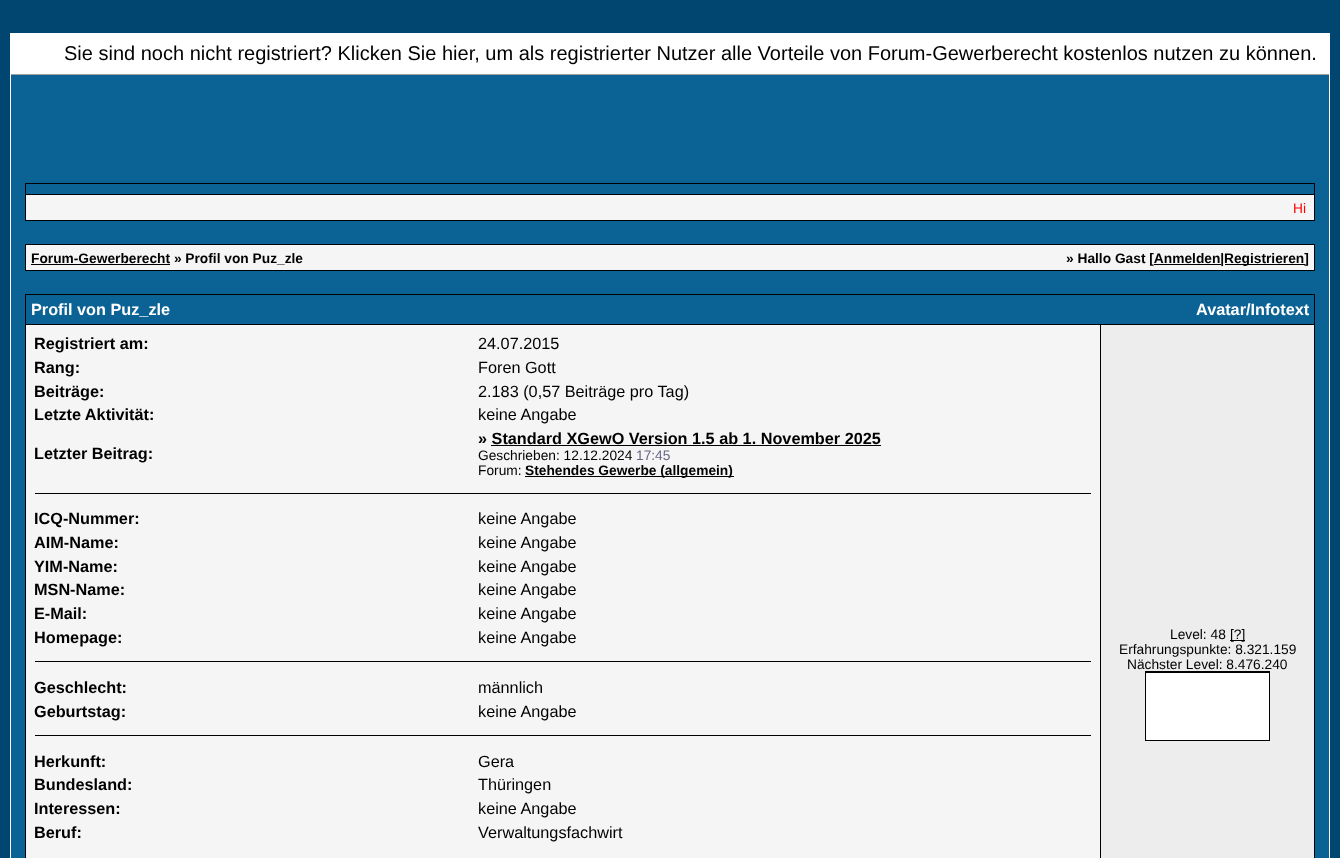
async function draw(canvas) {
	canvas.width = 1340;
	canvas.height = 858;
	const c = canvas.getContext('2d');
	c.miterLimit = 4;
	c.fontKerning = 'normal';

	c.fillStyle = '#004671';
	c.fillRect(0, 0, 1340, 858);
	for (const [x, y, w, h, color] of [
		[10, 33, 1320, 825, '#fff'],
		[11, 75, 1318, 783, '#0b6295'],
		[11, 74, 1318, 1, '#9f9f9f'],
	]) {
		c.fillStyle = color;
		c.fillRect(x, y, w, h);
	}
	c.font = '20px Liberation Sans';
	c.fillStyle = '#000';
	c.fillText('Sie sind noch nicht registriert? Klicken Sie hier, um als registrierter Nutzer alle Vorteile von Forum-Gewerberecht kostenlos nutzen zu können.', 64, 60);
	for (const [x, y, w, h, color] of [
		[25, 183, 1290, 38, '#000'],
		[26, 184, 1288, 10, '#0b6295'],
		[26, 195, 1288, 25, '#f5f5f5'],
	]) {
		c.fillStyle = color;
		c.fillRect(x, y, w, h);
	}
	c.font = '13.75px Liberation Sans';
	c.fillStyle = '#f00';
	c.fillText('Hi', 1293, 213);
	for (const [x, y, w, h, color] of [
		[25, 244, 1290, 27, '#000'],
		[26, 245, 1288, 25, '#f5f5f5'],
		[31, 264, 139, 1, '#000'],
	]) {
		c.fillStyle = color;
		c.fillRect(x, y, w, h);
	}
	c.font = 'bold 13.75px Liberation Sans';
	c.fillText('Forum-Gewerberecht » Profil von Puz_zle', 31, 263);
	c.fillText('» Hallo Gast [Anmelden|', 1066, 263);
	c.fillRect(1154, 264, 67, 1);
	c.fillRect(1225, 264, 80, 1);
	c.fillText('Registrieren]', 1224, 263);
	c.fillRect(25, 294, 1290, 564);
	c.fillStyle = '#0b6295';
	c.fillRect(26, 295, 1288, 29);
	c.font = 'bold 16.25px Liberation Sans';
	c.fillStyle = '#fff';
	c.fillText('Profil von Puz_zle', 31, 315);
	c.fillText('Avatar/Infotext', 1196, 315);
	c.fillStyle = '#f5f5f5';
	c.fillRect(26, 325, 1074, 533);
	c.fillStyle = '#000';
	c.fillText('Registriert am:', 34, 349);
	c.font = '16.25px Liberation Sans';
	c.fillText('24.07.2015', 478, 349);
	c.font = 'bold 16.25px Liberation Sans';
	c.fillText('Rang:', 34, 373);
	c.font = '16.25px Liberation Sans';
	c.fillText('Foren Gott', 478, 373);
	c.font = 'bold 16.25px Liberation Sans';
	c.fillText('Beiträge:', 34, 397);
	c.font = '16.25px Liberation Sans';
	c.fillText('2.183 (0,57 Beiträge pro Tag)', 478, 397);
	c.font = 'bold 16.25px Liberation Sans';
	c.fillText('Letzte Aktivität:', 34, 420);
	c.font = '16.25px Liberation Sans';
	c.fillText('keine Angabe', 478, 420);
	c.font = 'bold 16.25px Liberation Sans';
	c.fillText('Letzter Beitrag:', 34, 459);
	c.fillText('» Standard XGewO Version 1.5 ab 1. November 2025', 478, 444);
	c.fillRect(491, 445, 390, 1);
	c.font = '13.75px Liberation Sans';
	c.fillText('Geschrieben: 12.12.2024', 478, 460);
	c.fillStyle = '#666686';
	c.fillText('17:45', 636, 460);
	c.fillStyle = '#000';
	c.fillText('Forum:', 478, 475);
	c.fillRect(525, 476, 209, 1);
	c.font = 'bold 13.75px Liberation Sans';
	c.fillText('Stehendes Gewerbe (allgemein)', 525, 475);
	c.fillRect(35, 493, 1056, 1);
	c.font = 'bold 16.25px Liberation Sans';
	c.fillText('ICQ-Nummer:', 34, 524);
	c.font = '16.25px Liberation Sans';
	c.fillText('keine Angabe', 478, 524);
	c.font = 'bold 16.25px Liberation Sans';
	c.fillText('AIM-Name:', 34, 548);
	c.font = '16.25px Liberation Sans';
	c.fillText('keine Angabe', 478, 548);
	c.font = 'bold 16.25px Liberation Sans';
	c.fillText('YIM-Name:', 34, 572);
	c.font = '16.25px Liberation Sans';
	c.fillText('keine Angabe', 478, 572);
	c.font = 'bold 16.25px Liberation Sans';
	c.fillText('MSN-Name:', 34, 595);
	c.font = '16.25px Liberation Sans';
	c.fillText('keine Angabe', 478, 595);
	c.font = 'bold 16.25px Liberation Sans';
	c.fillText('E-Mail:', 34, 619);
	c.font = '16.25px Liberation Sans';
	c.fillText('keine Angabe', 478, 619);
	c.font = 'bold 16.25px Liberation Sans';
	c.fillText('Homepage:', 34, 643);
	c.font = '16.25px Liberation Sans';
	c.fillText('keine Angabe', 478, 643);
	c.fillRect(35, 661, 1056, 1);
	c.font = 'bold 16.25px Liberation Sans';
	c.fillText('Geschlecht:', 34, 693);
	c.font = '16.25px Liberation Sans';
	c.fillText('männlich', 478, 693);
	c.font = 'bold 16.25px Liberation Sans';
	c.fillText('Geburtstag:', 34, 717);
	c.font = '16.25px Liberation Sans';
	c.fillText('keine Angabe', 478, 717);
	c.fillRect(35, 735, 1056, 1);
	c.font = 'bold 16.25px Liberation Sans';
	c.fillText('Herkunft:', 34, 767);
	c.font = '16.25px Liberation Sans';
	c.fillText('Gera', 478, 767);
	c.font = 'bold 16.25px Liberation Sans';
	c.fillText('Bundesland:', 34, 790);
	c.font = '16.25px Liberation Sans';
	c.fillText('Thüringen', 478, 790);
	c.font = 'bold 16.25px Liberation Sans';
	c.fillText('Interessen:', 34, 814);
	c.font = '16.25px Liberation Sans';
	c.fillText('keine Angabe', 478, 814);
	c.font = 'bold 16.25px Liberation Sans';
	c.fillText('Beruf:', 34, 838);
	c.font = '16.25px Liberation Sans';
	c.fillText('Verwaltungsfachwirt', 478, 838);
	c.fillStyle = '#ededed';
	c.fillRect(1101, 325, 213, 533);
	c.font = '13.75px Liberation Sans';
	c.fillStyle = '#000';
	c.fillText('Level: 48', 1170, 639);
	c.fillRect(1230, 640, 15, 1);
	for (const [text, x, y] of [
		['[?]', 1230, 639],
		['Erfahrungspunkte: 8.321.159', 1119, 654],
		['Nächster Level: 8.476.240', 1127, 669],
	]) {
		c.fillText(text, x, y);
	}
	c.fillRect(1145, 671, 125, 70);
	c.fillStyle = '#fff';
	c.fillRect(1146, 673, 123, 67);
}

draw(document.querySelector('canvas'));
